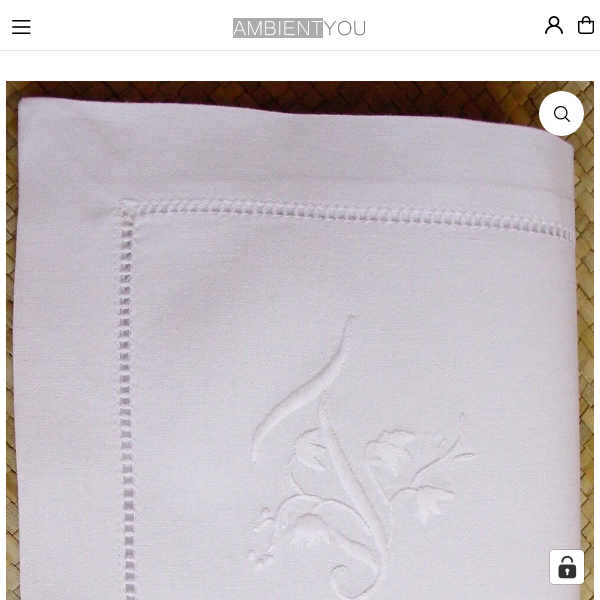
async function draw(canvas) {
	canvas.width = 600;
	canvas.height = 600;
	const c = canvas.getContext('2d');
	c.miterLimit = 4;
	c.fontKerning = 'normal';
	async function loadImage(src) {
		const img = new Image();
		img.src = src;
		await img.decode();
		return img;
	}

	c.fillStyle = '#fff';
	c.fillRect(0, 0, 600, 600);
	c.fillStyle = '#e5e5e5';
	c.fillRect(0, 50, 600, 1);
	c.drawImage(await loadImage('img1.png'), 12, 20, 19, 14);
	c.drawImage(await loadImage('img2.png'), 232, 18, 134, 20);
	c.drawImage(await loadImage('img3.png'), 545, 16, 18, 18);
	c.drawImage(await loadImage('img4.png'), 578, 16, 16, 18);
	c.drawImage(await loadImage('img5.png'), 6, 81, 588, 519);
	c.fillStyle = '#fff';
	c.beginPath();
	c.arc(561.5, 113.5, 22.5, 0, 2 * Math.PI);
	c.fill();
	c.drawImage(await loadImage('img6.png'), 554, 106, 16, 16);
	c.beginPath();
	c.roundRect(549.5, 549.5, 35, 35, 4.5);
	c.strokeStyle = '#00000026';
	c.stroke();
	c.beginPath();
	c.roundRect(550, 550, 34, 34, 4);
	c.fill();
	c.drawImage(await loadImage('img7.png'), 558, 556, 19, 23);
}

draw(document.querySelector('canvas'));
